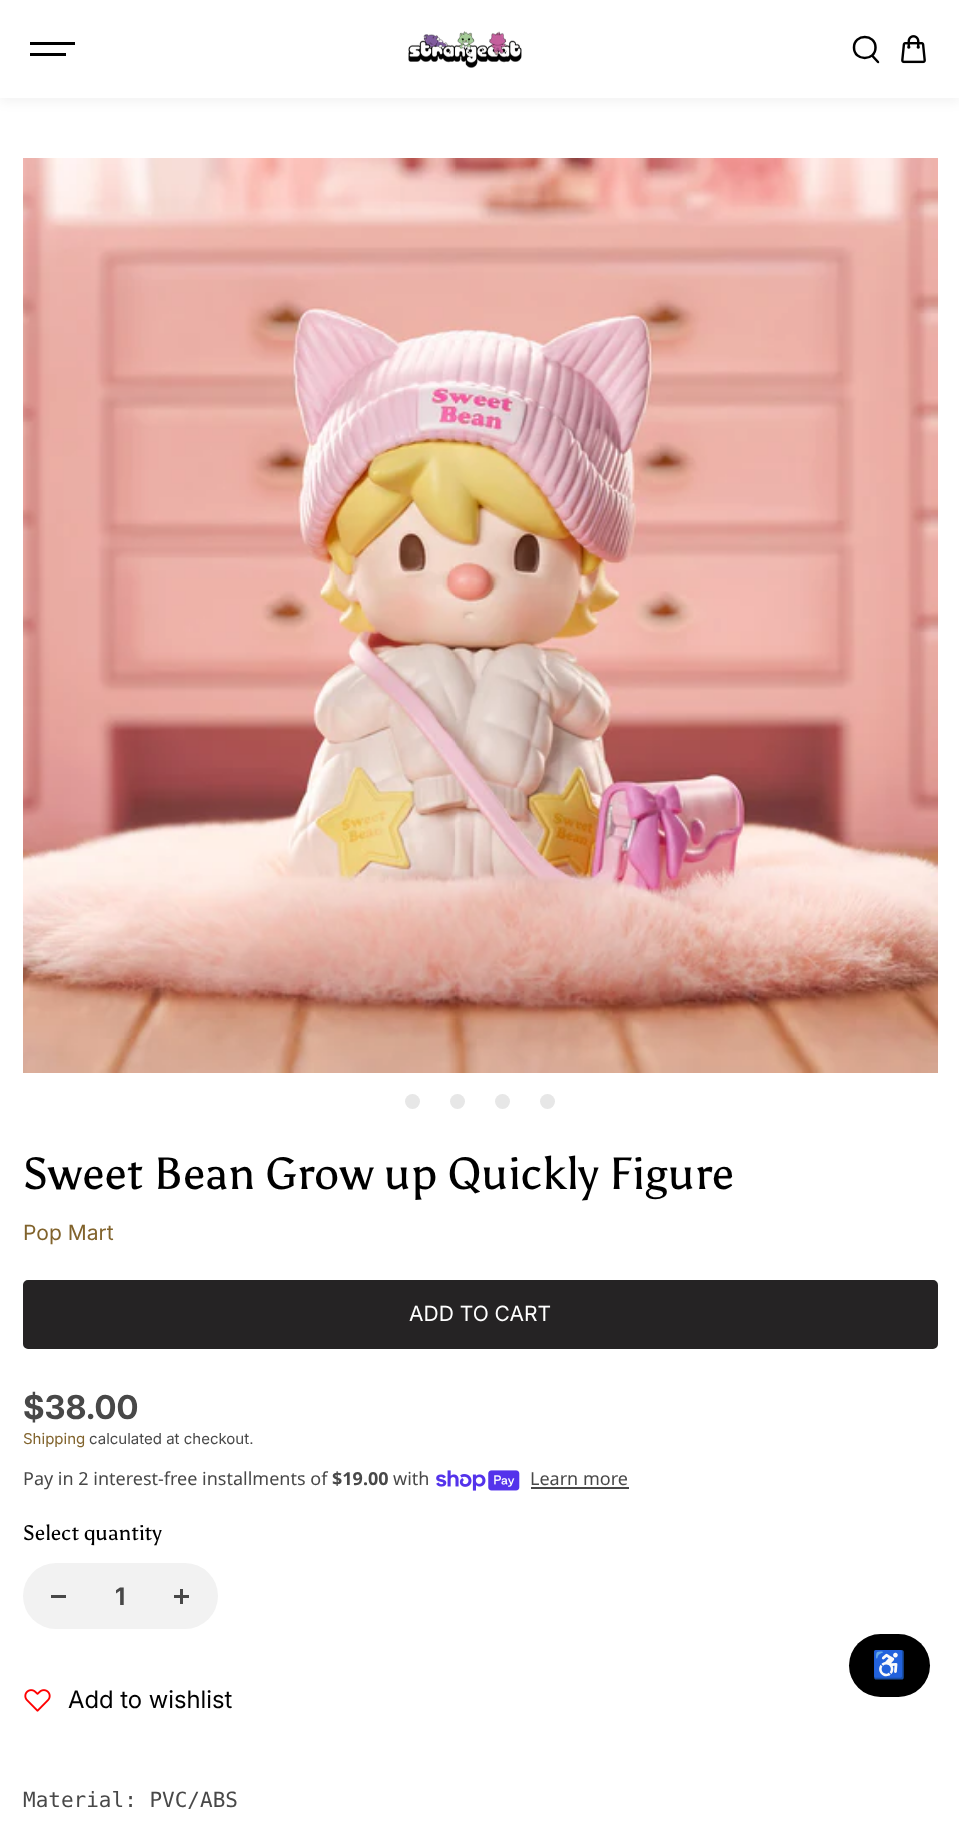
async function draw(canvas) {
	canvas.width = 959;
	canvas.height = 1831;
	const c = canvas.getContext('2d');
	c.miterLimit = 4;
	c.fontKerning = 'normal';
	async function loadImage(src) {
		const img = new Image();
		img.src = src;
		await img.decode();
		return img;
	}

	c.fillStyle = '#fff';
	c.fillRect(0, 0, 959, 1831);
	c.fillStyle = '#0000000d';
	c.filter = 'blur(6px)';
	c.beginPath();
	c.rect(0, 5, 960, 97);
	c.fill();
	c.filter = 'none';
	for (const [x, y, w, h, color] of [
		[0, 0, 959, 98, '#fff'],
		[30, 42, 45, 3, '#000'],
		[30, 53, 36, 3, '#000'],
	]) {
		c.fillStyle = color;
		c.fillRect(x, y, w, h);
	}
	c.drawImage(await loadImage('img1.png'), 408, 31, 114, 37);
	c.beginPath();
	c.moveTo(872.5, 56);
	c.lineTo(878, 62);
	c.moveTo(875.5, 47.5);
	c.bezierCurveTo(875.5, 61.5, 854, 61.5, 854, 47.5);
	c.bezierCurveTo(854, 33.5, 875.5, 33.5, 875.5, 47.5);
	c.closePath();
	c.strokeStyle = '#000';
	c.lineWidth = 2.5;
	c.lineCap = 'round';
	c.lineJoin = 'round';
	c.stroke();
	c.drawImage(await loadImage('img2.png'), 901, 35, 25, 29);
	c.drawImage(await loadImage('img3.png'), 23, 158, 915, 915);
	c.fillStyle = '#e7e7e7';
	c.beginPath();
	c.arc(412.5, 1101.5, 7.5, 0, 2 * Math.PI);
	c.fill();
	c.beginPath();
	c.arc(457.5, 1101.5, 7.5, 0, 2 * Math.PI);
	c.fill();
	c.beginPath();
	c.arc(502.5, 1101.5, 7.5, 0, 2 * Math.PI);
	c.fill();
	c.beginPath();
	c.arc(547.5, 1101.5, 7.5, 0, 2 * Math.PI);
	c.fill();
	c.font = '45px Asul';
	c.fillStyle = '#000';
	c.fillText('Sweet Bean Grow up Quickly Figure', 23, 1189);
	c.font = '21px Inter';
	c.fillStyle = '#81632c';
	c.fillText('Pop Mart', 23, 1240);
	c.fillStyle = '#252324';
	c.beginPath();
	c.roundRect(24, 1281, 913, 67, 4);
	c.fill();
	c.strokeStyle = '#252324';
	c.lineWidth = 2;
	c.lineJoin = 'miter';
	c.stroke();
	c.fillStyle = '#fff';
	c.fillText('ADD TO CART', 409, 1321);
	c.font = 'bold 33px Inter';
	c.fillStyle = '#484848';
	c.fillText('$38.00', 23, 1419);
	c.font = '15px Inter';
	c.fillStyle = '#81632c';
	c.fillText('Shipping', 23, 1444);
	c.fillStyle = '#484848';
	c.fillText('calculated at checkout.', 89, 1444);
	c.font = '18px Noto Sans';
	c.fillText('Pay in 2 interest-free installments of', 23, 1485);
	c.font = 'bold 18px Noto Sans';
	c.fillText('$19.00', 332, 1485);
	c.font = '18px Noto Sans';
	c.fillText('with', 393, 1485);
	c.drawImage(await loadImage('img4.png'), 436, 1470, 84, 21);
	c.fillText('Learn more', 530, 1485);
	c.fillRect(531, 1487, 98, 2);
	c.font = '21px Asul';
	c.fillStyle = '#000';
	c.fillText('Select quantity', 23, 1540);
	c.fillStyle = '#f2f2f2';
	c.beginPath();
	c.roundRect(23, 1563, 195, 66, 33);
	c.fill();
	c.fillStyle = '#484848';
	c.fillRect(51, 1595, 15, 3);
	c.font = 'bold 24px "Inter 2"';
	c.fillText('1', 115, 1605);
	c.fillRect(174, 1595, 15, 3);
	c.fillRect(180, 1589, 3, 15);
	c.drawImage(await loadImage('img5.png'), 24, 1689, 27, 23);
	c.font = '24px "Inter 2"';
	c.fillStyle = '#000';
	c.fillText('Add to wishlist', 68, 1708);
	c.font = '21px DejaVu Sans Mono';
	c.fillStyle = '#484848';
	c.fillText('Material: PVC/ABS', 23, 1807);
	c.fillStyle = '#000';
	c.beginPath();
	c.roundRect(849, 1634, 81, 63, 31.5);
	c.fill();
	c.font = '27px Noto Color Emoji';
	c.fillStyle = '#fff';
	c.fillText('♿', 872, 1674);
}

draw(document.querySelector('canvas'));
